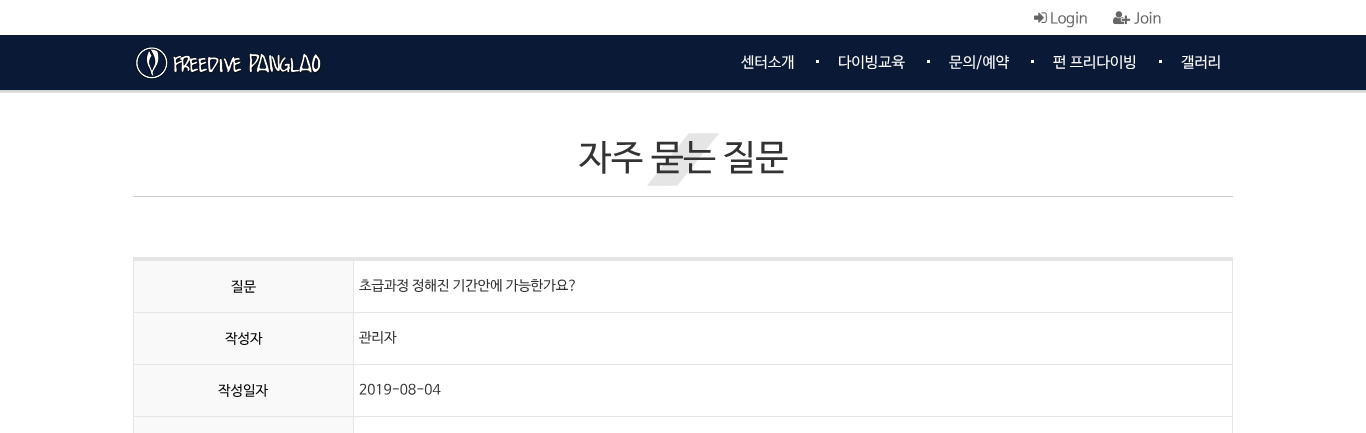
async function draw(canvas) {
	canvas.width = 1366;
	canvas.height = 433;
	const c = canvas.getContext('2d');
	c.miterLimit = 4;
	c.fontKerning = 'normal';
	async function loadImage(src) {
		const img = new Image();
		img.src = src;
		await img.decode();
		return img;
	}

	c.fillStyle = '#fff';
	c.fillRect(0, 0, 1366, 433);
	c.drawImage(await loadImage('img1.png'), 1034, 12, 13, 11);
	c.font = '15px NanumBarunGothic';
	c.fillStyle = '#666';
	c.fillText('Login', 1050, 23);
	c.drawImage(await loadImage('img2.png'), 1113, 11, 18, 14);
	c.fillText('Join', 1134, 23);
	c.fillStyle = '#0a1935';
	c.fillRect(0, 35, 1366, 55);
	c.fillStyle = '#cecece';
	c.fillRect(0, 90, 1366, 1);
	c.drawImage(await loadImage('img3.png'), 135, 47, 187, 32);
	c.fillStyle = '#fff';
	c.fillText('센터소개', 741, 67);
	c.fillRect(816, 60, 3, 3);
	c.fillText('다이빙교육', 838, 67);
	c.fillRect(927, 60, 3, 3);
	c.fillText('문의/예약', 949, 67);
	c.fillRect(1031, 60, 3, 3);
	c.fillText('펀 프리다이빙', 1053, 67);
	c.fillRect(1159, 60, 3, 3);
	c.fillText('갤러리', 1181, 67);
	c.fillStyle = '#dedede';
	c.fillRect(0, 91, 1366, 2);
	c.fillStyle = '#ccc';
	c.fillRect(133, 196, 1100, 1);
	c.drawImage(await loadImage('img4.png'), 647, 133, 72, 53);
	c.font = '36px NanumBarunGothic';
	c.fillStyle = '#333';
	c.fillText('자주 묻는 질문', 579, 169);
	for (const [x, y, w, h, color] of [
		[133, 257, 1100, 4, '#e5e5e5'],
		[1232, 260, 1, 173, '#e5e5e5'],
		[133, 260, 1, 173, '#e5e5e5'],
		[134, 261, 219, 51, '#f9f9f9'],
	]) {
		c.fillStyle = color;
		c.fillRect(x, y, w, h);
	}
	c.font = '14px NanumBarunGothic';
	c.fillStyle = '#000';
	c.fillText('질문', 231, 291);
	for (const [x, y, w, h, color] of [
		[353, 312, 880, 1, '#e5e5e5'],
		[353, 364, 880, 1, '#e5e5e5'],
		[353, 416, 880, 1, '#e5e5e5'],
		[353, 416, 1, 17, '#e5e5e5'],
		[133, 416, 221, 1, '#e5e5e5'],
		[353, 364, 1, 53, '#e5e5e5'],
		[133, 364, 221, 1, '#e5e5e5'],
		[353, 312, 1, 53, '#e5e5e5'],
		[133, 312, 221, 1, '#e5e5e5'],
		[353, 260, 1, 53, '#e5e5e5'],
	]) {
		c.fillStyle = color;
		c.fillRect(x, y, w, h);
	}
	c.fillStyle = '#333';
	c.fillText('초급과정 정해진 기간안에 가능한가요?', 359, 290);
	c.fillStyle = '#f9f9f9';
	c.fillRect(134, 313, 219, 51);
	c.fillStyle = '#000';
	c.fillText('작성자', 225, 343);
	c.fillStyle = '#333';
	c.fillText('관리자', 359, 342);
	c.fillStyle = '#f9f9f9';
	c.fillRect(134, 365, 219, 51);
	c.fillStyle = '#000';
	c.fillText('작성일자', 218, 395);
	c.fillStyle = '#333';
	c.fillText('2019-08-04', 359, 394);
	c.fillStyle = '#f9f9f9';
	c.fillRect(134, 417, 219, 16);
}

draw(document.querySelector('canvas'));
